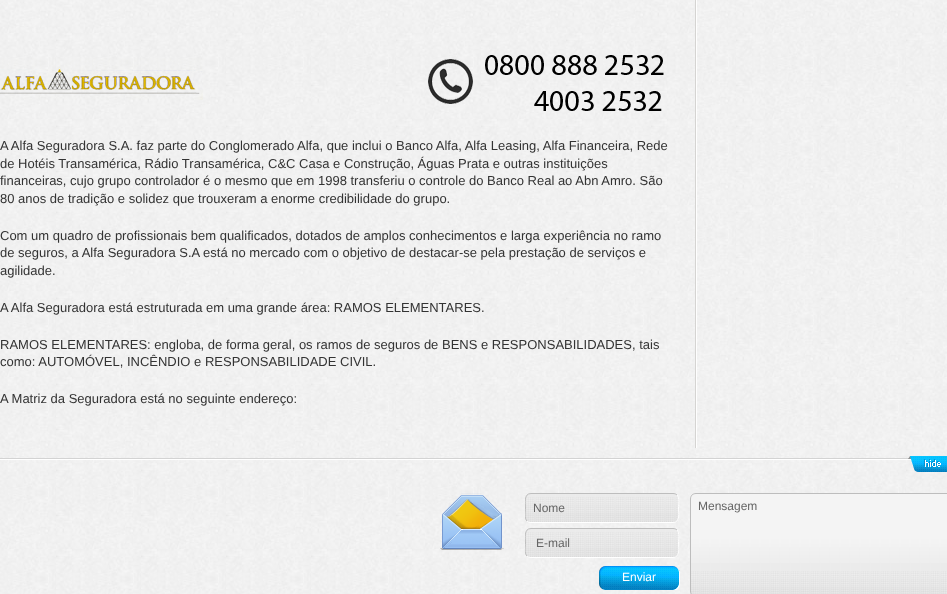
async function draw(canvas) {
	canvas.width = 947;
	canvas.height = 594;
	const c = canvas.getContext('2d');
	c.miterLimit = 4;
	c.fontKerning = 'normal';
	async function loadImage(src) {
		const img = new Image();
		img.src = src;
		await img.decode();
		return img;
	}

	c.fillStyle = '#fff';
	c.fillRect(0, 0, 947, 594);
	c.drawImage(await loadImage('img1.png'), 0, 0, 947, 594);
	c.drawImage(await loadImage('img2.png'), 695, 0, 2, 448);
	c.drawImage(await loadImage('img3.png'), 0, 55, 664, 56);
	c.font = '13px Liberation Sans';
	c.fillStyle = '#333';
	for (const [text, x, y] of [
		['A Alfa Seguradora S.A. faz parte do Conglomerado Alfa, que inclui o Banco Alfa, Alfa Leasing, Alfa Financeira, Rede', 0, 150],
		['de Hotéis Transamérica, Rádio Transamérica, C&C Casa e Construção, Águas Prata e outras instituições', 0, 168],
		['financeiras, cujo grupo controlador é o mesmo que em 1998 transferiu o controle do Banco Real ao Abn Amro. São', 0, 185],
		['80 anos de tradição e solidez que trouxeram a enorme credibilidade do grupo.', 0, 203],
		['Com um quadro de profissionais bem qualificados, dotados de amplos conhecimentos e larga experiência no ramo', 0, 240],
		['de seguros, a Alfa Seguradora S.A está no mercado com o objetivo de destacar-se pela prestação de serviços e', 0, 257],
		['agilidade.', 0, 275],
		['A Alfa Seguradora está estruturada em uma grande área: RAMOS ELEMENTARES.', 0, 312],
		['RAMOS ELEMENTARES: engloba, de forma geral, os ramos de seguros de BENS e RESPONSABILIDADES, tais', 0, 349],
		['como: AUTOMÓVEL, INCÊNDIO e RESPONSABILIDADE CIVIL.', 0, 366],
		['A Matriz da Seguradora está no seguinte endereço:', 0, 403],
	]) {
		c.fillText(text, x, y);
	}
	c.drawImage(await loadImage('img4.png'), 0, 458, 912, 2);
	c.drawImage(await loadImage('img5.png'), 908, 456, 39, 16);
	c.drawImage(await loadImage('img6.png'), 440, 493, 64, 57);
	c.drawImage(await loadImage('img7.png'), 525, 493, 154, 29);
	c.beginPath();
	c.moveTo(677, 495);
	c.bezierCurveTo(680, 498, 678.5, 504.5, 678.5, 508);
	c.bezierCurveTo(678.5, 512.5, 680.5, 522.5, 673, 522.5);
	c.lineTo(531, 522.5);
	c.bezierCurveTo(529.5, 522.5, 528, 522, 527, 521);
	c.strokeStyle = '#fff';
	c.stroke();
	c.save();
	c.beginPath();
	c.rect(525, 493, 155, 97);
	c.clip();
	c.beginPath();
	c.moveTo(527, 521);
	c.bezierCurveTo(524, 518, 525.5, 511.5, 525.5, 508);
	c.bezierCurveTo(525.5, 503.5, 523.5, 493.5, 531, 493.5);
	c.lineTo(673, 493.5);
	c.bezierCurveTo(674.5, 493.5, 676, 494, 677, 495);
	c.strokeStyle = '#bdbdbd';
	c.stroke();
	c.restore();
	c.font = '12px Liberation Sans';
	c.fillStyle = '#666';
	c.fillText('Nome', 533, 512);
	c.drawImage(await loadImage('img8.png'), 525, 528, 154, 29);
	c.beginPath();
	c.moveTo(677, 530);
	c.bezierCurveTo(680, 533, 678.5, 539.5, 678.5, 543);
	c.bezierCurveTo(678.5, 547.5, 680.5, 557.5, 673, 557.5);
	c.lineTo(531, 557.5);
	c.bezierCurveTo(529.5, 557.5, 528, 557, 527, 556);
	c.stroke();
	c.save();
	c.beginPath();
	c.rect(525, 493, 155, 97);
	c.clip();
	c.beginPath();
	c.moveTo(527, 556);
	c.bezierCurveTo(524, 553, 525.5, 546.5, 525.5, 543);
	c.bezierCurveTo(525.5, 538.5, 523.5, 528.5, 531, 528.5);
	c.lineTo(673, 528.5);
	c.bezierCurveTo(674.5, 528.5, 676, 529, 677, 530);
	c.strokeStyle = '#bdbdbd';
	c.stroke();
	c.restore();
	c.fillText('E-mail', 536, 547);
	c.drawImage(await loadImage('img9.png'), 599, 566, 81, 24);
	c.fillStyle = '#fff';
	c.fillText('Enviar', 622, 581);
	c.drawImage(await loadImage('img10.png'), 690, 493, 257, 101);
	c.beginPath();
	c.moveTo(692, 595);
	c.bezierCurveTo(691, 594, 690.5, 592.5, 690.5, 591);
	c.lineTo(690.5, 499);
	c.bezierCurveTo(690.5, 497.5, 691, 496, 692, 495);
	c.bezierCurveTo(693, 494, 694.5, 493.5, 696, 493.5);
	c.lineTo(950, 493.5);
	c.bezierCurveTo(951.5, 493.5, 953, 494, 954, 495);
	c.strokeStyle = '#bdbdbd';
	c.stroke();
	c.fillStyle = '#666';
	c.fillText('Mensagem', 698, 510);
}

draw(document.querySelector('canvas'));
